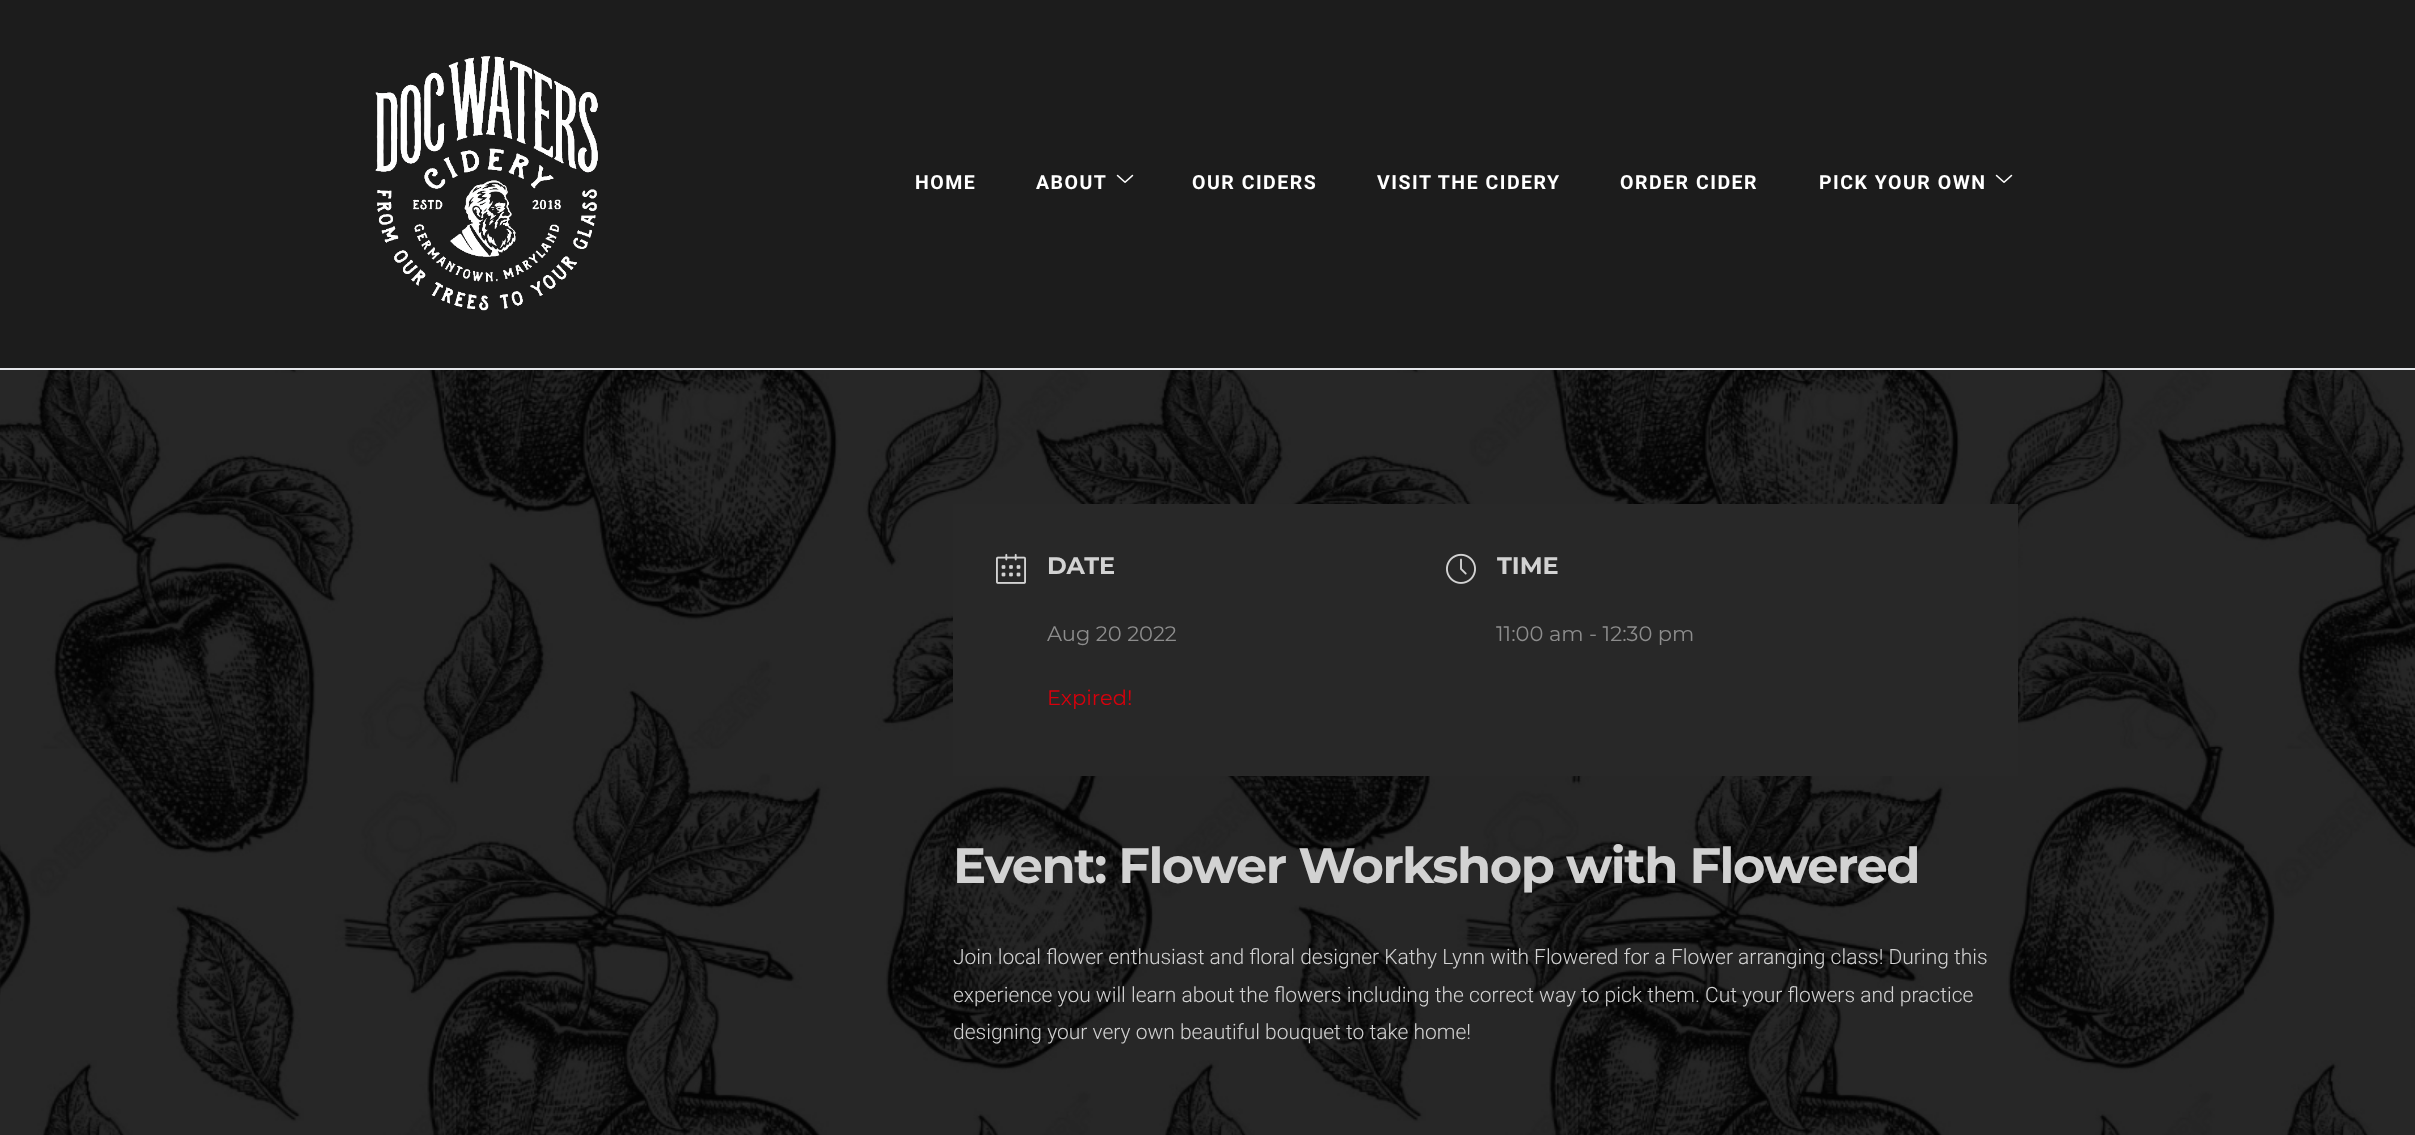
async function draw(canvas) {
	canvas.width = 2415;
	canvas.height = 1135;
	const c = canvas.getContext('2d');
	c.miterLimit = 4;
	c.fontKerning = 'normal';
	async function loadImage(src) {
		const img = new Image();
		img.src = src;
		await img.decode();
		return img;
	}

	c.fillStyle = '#fff';
	c.fillRect(0, 0, 2415, 1135);
	c.drawImage(await loadImage('img1.png'), 0, 370, 2415, 765);
	c.fillStyle = '#1c1c1c';
	c.fillRect(0, 0, 2415, 368);
	c.fillStyle = '#e4e6ea';
	c.fillRect(0, 368, 2415, 2);
	c.drawImage(await loadImage('img2.png'), 375, 56, 223, 255);
	c.letterSpacing = '1.5px';
	c.font = 'bold 19.5px Roboto';
	c.fillStyle = '#fff';
	c.fillText('HOME', 915, 189);
	c.fillText('ABOUT', 1036, 189);
	c.drawImage(await loadImage('img3.png'), 1116, 174, 18, 9);
	for (const [text, x, y] of [
		['OUR CIDERS', 1192, 189],
		['VISIT THE CIDERY', 1377, 189],
		['ORDER CIDER', 1620, 189],
		['PICK YOUR OWN', 1819, 189],
	]) {
		c.fillText(text, x, y);
	}
	c.drawImage(await loadImage('img3.png'), 1995, 174, 18, 9);
	c.fillStyle = '#282828';
	c.fillRect(953, 504, 1065, 272);
	c.drawImage(await loadImage('img4.png'), 996, 553, 30, 31);
	c.letterSpacing = '0px';
	c.font = 'bold 24px Montserrat';
	c.fillStyle = '#d2d2d2';
	c.fillText('DATE', 1047, 574);
	c.font = '21px Montserrat';
	c.fillStyle = '#8d8d8d';
	c.fillText('Aug 20 2022', 1047, 641);
	c.fillStyle = '#d8000c';
	c.fillText('Expired!', 1047, 705);
	c.drawImage(await loadImage('img5.png'), 1446, 553, 30, 31);
	c.font = 'bold 24px Montserrat';
	c.fillStyle = '#d2d2d2';
	c.fillText('TIME', 1497, 574);
	c.font = '21px Montserrat';
	c.fillStyle = '#8d8d8d';
	c.fillText('11:00 am - 12:30 pm', 1496, 641);
	c.letterSpacing = '-1.5px';
	c.font = 'bold 49.5px Montserrat';
	c.fillStyle = '#d2d2d2';
	c.fillText('Event: Flower Workshop with Flowered', 953, 883);
	c.letterSpacing = '0px';
	c.font = '300 21px Roboto';
	for (const [text, x, y] of [
		['Join local flower enthusiast and floral designer Kathy Lynn with Flowered for a Flower arranging class! During this', 953, 964],
		['experience you will learn about the flowers including the correct way to pick them. Cut your flowers and practice', 953, 1002],
		['designing your very own beautiful bouquet to take home!', 953, 1039],
	]) {
		c.fillText(text, x, y);
	}
}

draw(document.querySelector('canvas'));
